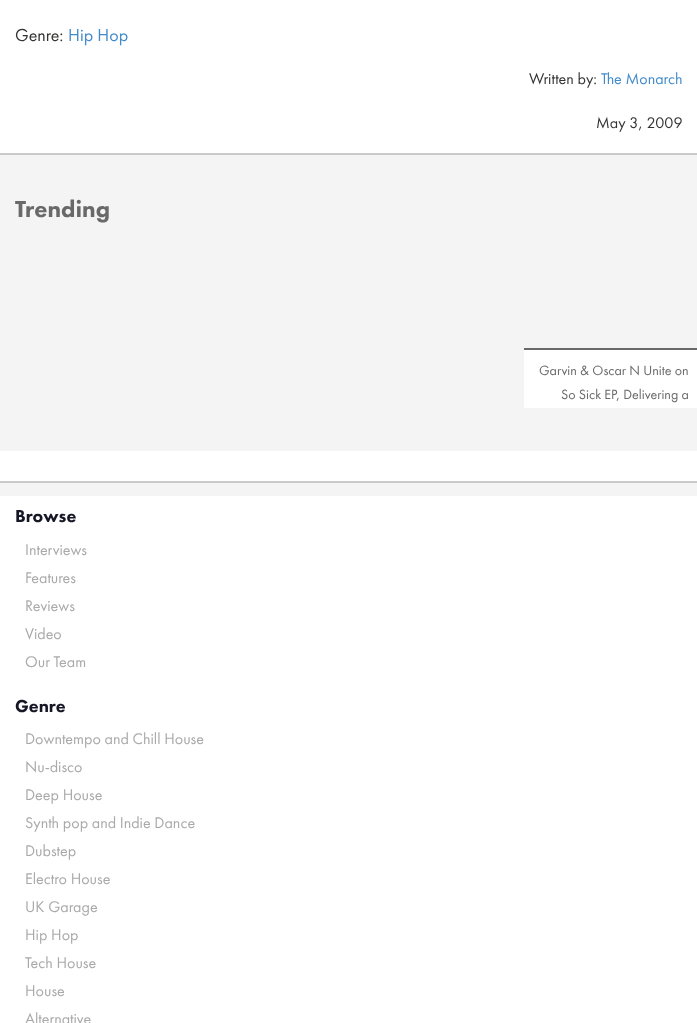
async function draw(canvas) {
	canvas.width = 697;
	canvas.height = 1023;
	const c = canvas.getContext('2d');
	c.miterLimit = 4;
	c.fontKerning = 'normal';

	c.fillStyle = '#f4f4f4';
	c.fillRect(0, 0, 697, 1023);
	c.fillStyle = '#21212133';
	c.filter = 'blur(0.5px)';
	c.beginPath();
	c.rect(0, -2, 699, 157);
	c.fill();
	c.filter = 'none';
	c.fillStyle = '#fff';
	c.fillRect(0, 0, 697, 153);
	c.font = '18px Futura PT';
	c.fillStyle = '#333332';
	c.fillText('Genre:', 15, 41);
	c.fillStyle = '#428bca';
	c.fillText('Hip Hop', 68, 41);
	c.font = '16px Futura PT';
	c.fillStyle = '#333332';
	c.fillText('Written by:', 529, 84);
	c.fillStyle = '#428bca';
	c.fillText('The Monarch', 601, 84);
	c.fillStyle = '#333332';
	c.fillText('May 3, 2009', 596, 128);
	c.font = '900 24px Futura PT';
	c.fillStyle = '#696969';
	c.fillText('Trending', 15, 217);
	c.fillStyle = '#fff';
	c.fillRect(524, 350, 173, 58);
	c.fillStyle = '#696969';
	c.fillRect(524, 348, 173, 2);
	c.font = '14px Futura PT';
	c.fillText('Garvin & Oscar N Unite on', 539, 375);
	c.fillText('So Sick EP, Delivering a', 561, 399);
	c.fillStyle = '#21212133';
	c.filter = 'blur(0.5px)';
	c.beginPath();
	c.rect(0, 451, 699, 32);
	c.fill();
	c.filter = 'none';
	c.fillStyle = '#fff';
	c.fillRect(0, 451, 697, 30);
	c.fillStyle = '#21212133';
	c.filter = 'blur(0.5px)';
	c.beginPath();
	c.rect(0, 496, 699, 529);
	c.fill();
	c.filter = 'none';
	c.fillStyle = '#fff';
	c.fillRect(0, 496, 697, 527);
	c.font = '900 18px Futura PT';
	c.fillStyle = '#161726';
	c.fillText('Browse', 15, 522);
	c.font = '16px Futura PT';
	c.fillStyle = '#a9a9a9';
	for (const [text, x, y] of [
		['Interviews', 25, 555],
		['Features', 25, 583],
		['Reviews', 25, 611],
		['Video', 25, 639],
		['Our Team', 25, 667],
	]) {
		c.fillText(text, x, y);
	}
	c.font = '900 18px Futura PT';
	c.fillStyle = '#161726';
	c.fillText('Genre', 15, 712);
	c.font = '16px Futura PT';
	c.fillStyle = '#a9a9a9';
	for (const [text, x, y] of [
		['Downtempo and Chill House', 25, 744],
		['Nu-disco', 25, 772],
		['Deep House', 25, 800],
		['Synth pop and Indie Dance', 25, 828],
		['Dubstep', 25, 856],
		['Electro House', 25, 884],
		['UK Garage', 25, 912],
		['Hip Hop', 25, 940],
		['Tech House', 25, 968],
		['House', 25, 996],
		['Alternative', 25, 1024],
	]) {
		c.fillText(text, x, y);
	}
}

draw(document.querySelector('canvas'));
